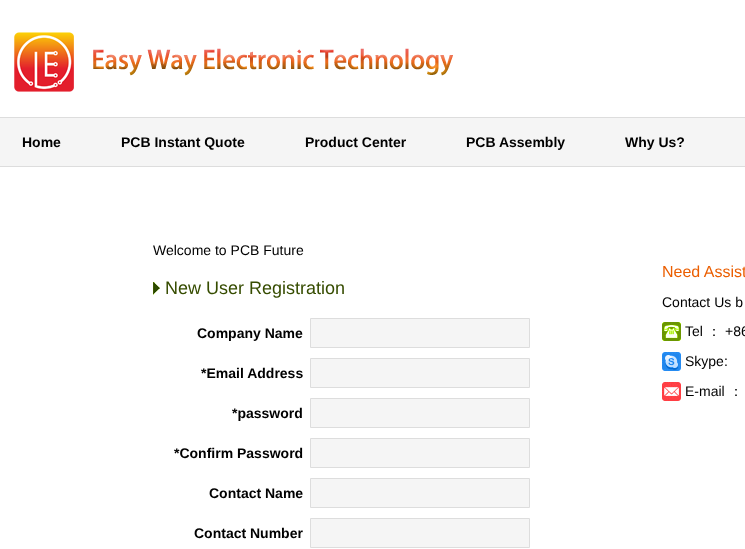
async function draw(canvas) {
	canvas.width = 745;
	canvas.height = 549;
	const c = canvas.getContext('2d');
	c.miterLimit = 4;
	c.fontKerning = 'normal';
	async function loadImage(src) {
		const img = new Image();
		img.src = src;
		await img.decode();
		return img;
	}

	c.fillStyle = '#fff';
	c.fillRect(0, 0, 745, 549);
	c.drawImage(await loadImage('img1.png'), 14, 32, 439, 60);
	c.fillStyle = '#f5f5f5';
	c.fillRect(0, 118, 745, 48);
	c.fillStyle = '#ddd';
	c.fillRect(0, 117, 745, 1);
	c.font = 'bold 14px Liberation Sans';
	c.fillStyle = '#000';
	for (const [text, x, y] of [
		['Home', 22, 147],
		['PCB Instant Quote', 121, 147],
		['Product Center', 305, 147],
		['PCB Assembly', 466, 147],
		['Why Us?', 625, 147],
	]) {
		c.fillText(text, x, y);
	}
	c.fillStyle = '#ddd';
	c.fillRect(0, 166, 745, 1);
	c.font = '14px Liberation Sans';
	c.fillStyle = '#000';
	c.fillText('Welcome to PCB Future', 153, 255);
	c.drawImage(await loadImage('img2.png'), 153, 282, 7, 13);
	c.font = '18px Liberation Sans';
	c.fillStyle = '#364c00';
	c.fillText('New User Registration', 165, 294);
	c.font = 'bold 14px Liberation Sans';
	c.fillStyle = '#000';
	c.fillText('Company Name', 197, 338);
	c.fillStyle = '#f5f5f5';
	c.beginPath();
	c.rect(310.5, 318.5, 219, 29);
	c.fill();
	c.strokeStyle = '#ddd';
	c.stroke();
	c.fillStyle = '#000';
	c.fillText('*Email Address', 201, 378);
	c.fillStyle = '#f5f5f5';
	c.beginPath();
	c.rect(310.5, 358.5, 219, 29);
	c.fill();
	c.stroke();
	c.fillStyle = '#000';
	c.fillText('*password', 232, 418);
	c.fillStyle = '#f5f5f5';
	c.beginPath();
	c.rect(310.5, 398.5, 219, 29);
	c.fill();
	c.stroke();
	c.fillStyle = '#000';
	c.fillText('*Confirm Password', 174, 458);
	c.fillStyle = '#f5f5f5';
	c.beginPath();
	c.rect(310.5, 438.5, 219, 29);
	c.fill();
	c.stroke();
	c.fillStyle = '#000';
	c.fillText('Contact Name', 209, 498);
	c.fillStyle = '#f5f5f5';
	c.beginPath();
	c.rect(310.5, 478.5, 219, 29);
	c.fill();
	c.stroke();
	c.fillStyle = '#000';
	c.fillText('Contact Number', 194, 538);
	c.fillStyle = '#f5f5f5';
	c.beginPath();
	c.rect(310.5, 518.5, 219, 29);
	c.fill();
	c.stroke();
	c.font = '16px Liberation Sans';
	c.fillStyle = '#eb5e00';
	c.fillText('Need Assist', 662, 277);
	c.font = '14px Liberation Sans';
	c.fillStyle = '#000';
	c.fillText('Contact Us b', 662, 307);
	c.drawImage(await loadImage('img3.png'), 662, 322, 19, 19);
	c.fillText('Tel', 685, 336);
	c.font = '500 14px WenQuanYi Zen Hei';
	c.fillText('：', 707, 336);
	c.font = '14px Liberation Sans';
	c.fillText('+86', 725, 336);
	c.drawImage(await loadImage('img4.png'), 662, 352, 19, 19);
	c.fillText('Skype:', 685, 366);
	c.drawImage(await loadImage('img5.png'), 662, 382, 19, 19);
	c.fillText('E-mail', 685, 396);
	c.font = '500 14px WenQuanYi Zen Hei';
	c.fillText('：', 729, 396);
}

draw(document.querySelector('canvas'));
